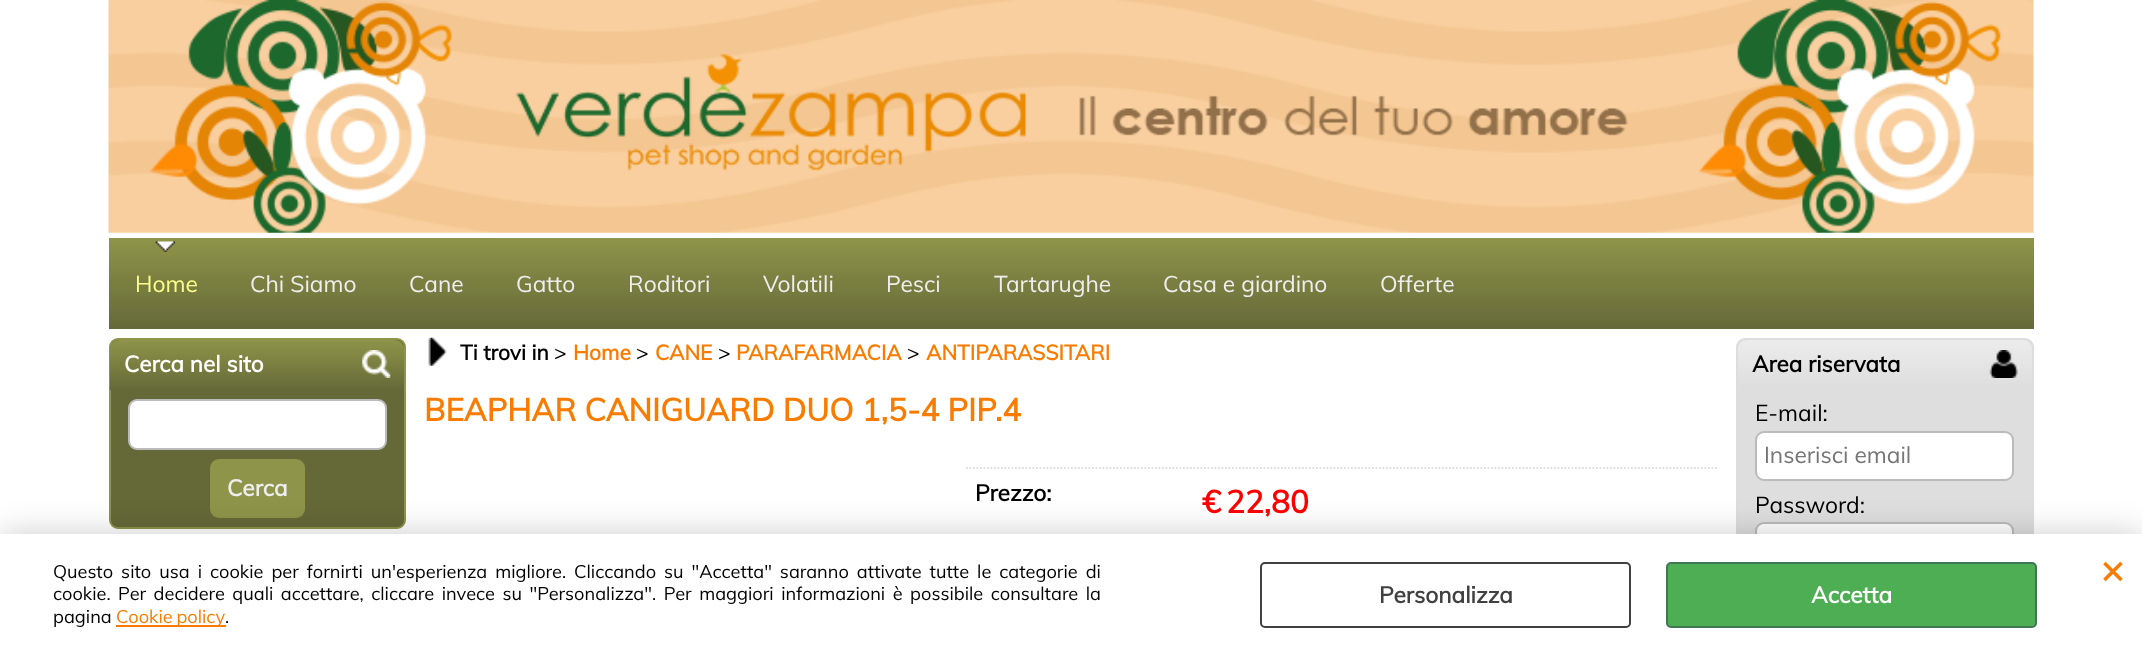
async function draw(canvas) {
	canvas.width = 2142;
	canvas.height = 653;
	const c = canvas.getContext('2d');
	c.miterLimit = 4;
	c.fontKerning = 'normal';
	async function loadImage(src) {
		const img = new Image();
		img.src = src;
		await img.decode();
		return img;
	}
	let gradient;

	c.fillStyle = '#fff';
	c.fillRect(0, 0, 2142, 653);
	c.drawImage(await loadImage('img1.png'), 108, 0, 1926, 233);
	gradient = c.createLinearGradient(1071, 238, 1071, 329);
	gradient.addColorStop(0, '#8e9449');
	gradient.addColorStop(1, '#656938');
	c.fillStyle = gradient;
	c.fillRect(109, 238, 1925, 91);
	c.drawImage(await loadImage('img2.png'), 155, 241, 20, 11);
	c.font = '22.75px Muli';
	c.fillStyle = '#fbfe89';
	c.fillText('Home', 135, 292);
	c.fillStyle = '#eee';
	for (const [text, x, y] of [
		['Chi Siamo', 250, 292],
		['Cane', 409, 292],
		['Gatto', 516, 292],
		['Roditori', 628, 292],
		['Volatili', 763, 292],
		['Pesci', 886, 292],
		['Tartarughe', 994, 292],
		['Casa e giardino', 1163, 292],
		['Offerte', 1380, 292],
	]) {
		c.fillText(text, x, y);
	}
	c.fillStyle = '#656938';
	c.beginPath();
	c.roundRect(110, 339, 295, 189, 8);
	c.fill();
	c.strokeStyle = '#8e9449';
	c.lineWidth = 2;
	c.stroke();
	gradient = c.createLinearGradient(257, 340, 257, 390);
	gradient.addColorStop(0, '#8e9449');
	gradient.addColorStop(1, '#656938');
	c.fillStyle = gradient;
	c.beginPath();
	c.roundRect(110, 340, 294, 50, [9, 9, 0, 0]);
	c.fill();
	c.drawImage(await loadImage('img3.png'), 362, 350, 29, 28);
	c.font = 'bold 22.5px Muli';
	c.fillStyle = '#fff';
	c.fillText('Cerca nel sito', 124, 372);
	c.beginPath();
	c.roundRect(129, 400, 257, 49, 8);
	c.fill();
	c.strokeStyle = '#bbb';
	c.stroke();
	c.fillStyle = '#8e9449';
	c.beginPath();
	c.roundRect(210, 459, 95, 59, 9);
	c.fill();
	c.font = 'bold 22.75px Muli';
	c.fillStyle = '#eee';
	c.fillText('Cerca', 227, 496);
	c.drawImage(await loadImage('img4.png'), 428, 337, 19, 29);
	c.font = 'bold 21px Muli';
	c.fillStyle = '#000';
	c.fillText('Ti trovi in', 460, 360);
	c.font = '21px Muli';
	c.fillText('>', 554, 360);
	c.font = 'bold 21px Muli';
	c.fillStyle = '#f97c00';
	c.fillText('Home', 573, 360);
	c.font = '21px Muli';
	c.fillStyle = '#000';
	c.fillText('>', 636, 360);
	c.font = 'bold 21px Muli';
	c.fillStyle = '#f97c00';
	c.fillText('CANE', 655, 360);
	c.font = '21px Muli';
	c.fillStyle = '#000';
	c.fillText('>', 718, 360);
	c.font = 'bold 21px Muli';
	c.fillStyle = '#f97c00';
	c.fillText('PARAFARMACIA', 736, 360);
	c.font = '21px Muli';
	c.fillStyle = '#000';
	c.fillText('>', 907, 360);
	c.font = 'bold 21px Muli';
	c.fillStyle = '#f97c00';
	c.fillText('ANTIPARASSITARI', 926, 360);
	c.font = 'bold 31.5px Muli';
	c.fillText('BEAPHAR CANIGUARD DUO 1,5-4 PIP.4', 424, 421);
	c.beginPath();
	c.moveTo(966, 468);
	c.lineTo(1193.5, 468);
	c.strokeStyle = '#ddd';
	c.lineWidth = 1.8;
	c.setLineDash([1.75, 1.75]);
	c.stroke();
	c.font = 'bold 22.75px Muli';
	c.fillStyle = '#000';
	c.fillText('Prezzo:', 975, 501);
	c.beginPath();
	c.moveTo(1193.5, 468);
	c.lineTo(1718.5, 468);
	c.stroke();
	c.font = 'bold 31.5px Muli';
	c.fillStyle = '#f00';
	c.fillText('€', 1202, 513);
	c.fillText('22,80', 1226, 513);
	c.fillStyle = '#dfdede';
	c.beginPath();
	c.roundRect(1737, 339, 296, 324, 8);
	c.fill();
	c.lineWidth = 2;
	c.setLineDash([]);
	c.stroke();
	gradient = c.createLinearGradient(1885, 340, 1885, 390);
	gradient.addColorStop(0, '#edecec');
	gradient.addColorStop(1, '#dedddd');
	c.fillStyle = gradient;
	c.beginPath();
	c.roundRect(1738, 340, 294, 50, [9, 9, 0, 0]);
	c.fill();
	c.drawImage(await loadImage('img5.png'), 1989, 350, 29, 28);
	c.font = 'bold 22.5px Muli';
	c.fillStyle = '#000';
	c.fillText('Area riservata', 1752, 372);
	c.font = '22.75px Muli';
	c.fillText('E-mail:', 1755, 421);
	c.fillStyle = '#fff';
	c.beginPath();
	c.roundRect(1756, 432, 257, 48, 8);
	c.fill();
	c.strokeStyle = '#bbb';
	c.stroke();
	c.fillStyle = '#757575';
	c.fillText('Inserisci email', 1764, 463);
	c.fillStyle = '#000';
	c.fillText('Password:', 1755, 513);
	c.fillStyle = '#fff';
	c.beginPath();
	c.roundRect(1756, 523, 257, 50, 8);
	c.fill();
	c.stroke();
	c.fillStyle = '#00000033';
	c.filter = 'blur(16px)';
	c.beginPath();
	c.rect(0, 534, 2142, 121);
	c.fill();
	c.filter = 'none';
	c.fillStyle = '#fff';
	c.fillRect(0, 534, 2142, 119);
	c.wordSpacing = '3.25px';
	c.font = '18.2px Muli';
	c.fillStyle = '#000';
	c.fillText('Questo sito usa i cookie per fornirti un\'esperienza migliore. Cliccando su "Accetta" saranno attivate tutte le categorie di', 53, 578);
	c.wordSpacing = '2.75px';
	c.fillText('cookie. Per decidere quali accettare, cliccare invece su "Personalizza". Per maggiori informazioni è possibile consultare la', 53, 600);
	c.wordSpacing = '0px';
	c.fillText('pagina', 53, 623);
	c.fillStyle = '#f97c00';
	c.fillRect(116, 625, 110, 2);
	c.wordSpacing = '-1px';
	c.fillText('Cookie policy', 116, 623);
	c.wordSpacing = '0px';
	c.fillStyle = '#000';
	c.fillText('.', 225, 623);
	c.beginPath();
	c.roundRect(1261, 563, 369, 64, 4);
	c.strokeStyle = '#424141';
	c.stroke();
	c.font = 'bold 22.75px Muli';
	c.fillStyle = '#424141';
	c.fillText('Personalizza', 1379, 603);
	c.fillStyle = '#4eae54';
	c.beginPath();
	c.roundRect(1667, 563, 369, 64, 4);
	c.fill();
	c.strokeStyle = '#3f7755';
	c.stroke();
	c.fillStyle = '#fff';
	c.fillText('Accetta', 1811, 603);
	c.font = 'bold 38px Muli';
	c.fillStyle = '#f97c00';
	c.fillText('×', 2101, 583);
}

draw(document.querySelector('canvas'));
